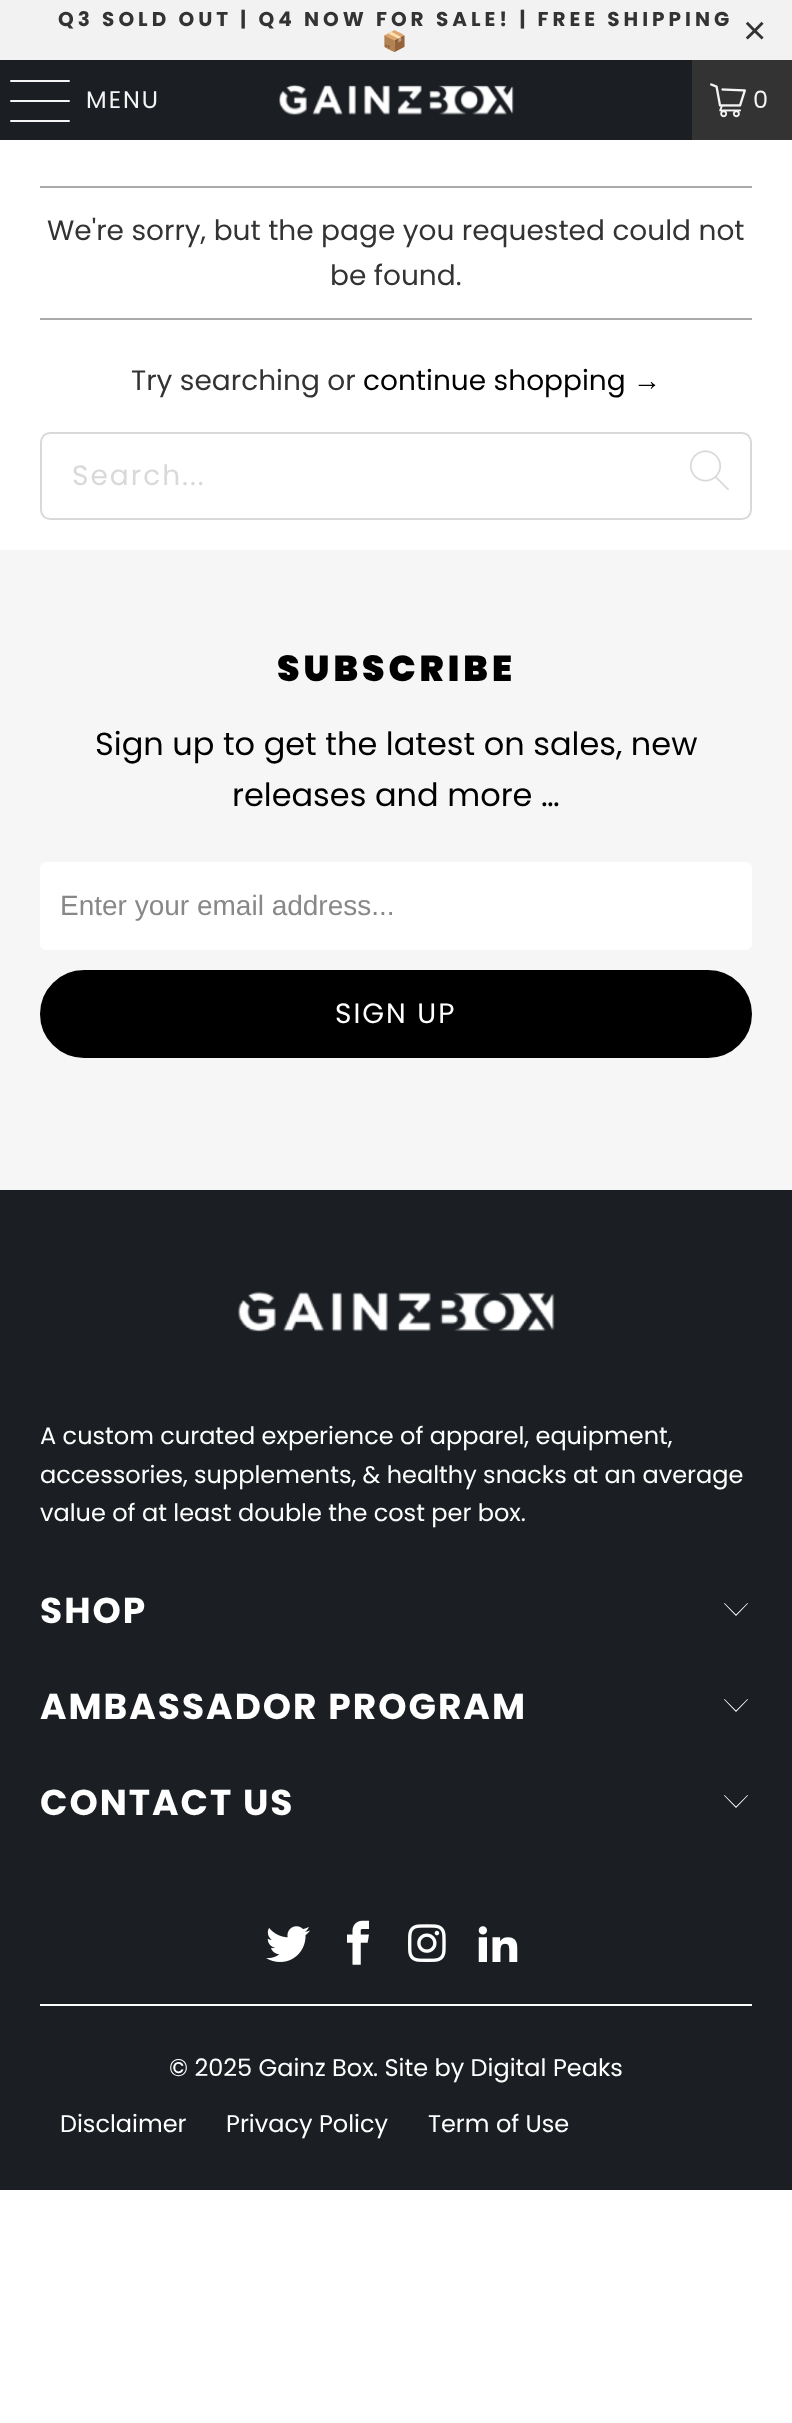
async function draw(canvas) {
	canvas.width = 792;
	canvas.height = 2423;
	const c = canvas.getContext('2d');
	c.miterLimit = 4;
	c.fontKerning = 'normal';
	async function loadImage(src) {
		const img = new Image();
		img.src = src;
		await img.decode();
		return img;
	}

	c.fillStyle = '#fff';
	c.fillRect(0, 0, 792, 2423);
	c.fillStyle = '#f2f2f2';
	c.fillRect(0, 0, 792, 60);
	c.letterSpacing = '4px';
	c.font = 'bold 20px Poppins';
	c.fillStyle = '#333';
	c.fillText('Q3 SOLD OUT | Q4 NOW FOR SALE! | FREE SHIPPING', 58, 26);
	c.font = '20px Noto Color Emoji';
	c.fillText('📦', 382, 48);
	c.font = '40px Liberation Sans';
	c.fillText('×', 743, 44);
	c.fillStyle = '#1b1f23';
	c.fillRect(0, 60, 692, 80);
	c.fillStyle = '#f4f4f4';
	c.beginPath();
	c.roundRect(10, 80, 60, 2, 1);
	c.fill();
	c.beginPath();
	c.roundRect(10, 100, 60, 2, 1);
	c.fill();
	c.beginPath();
	c.roundRect(10, 120, 60, 2, 1);
	c.fill();
	c.letterSpacing = '2px';
	c.font = '24px Poppins';
	c.fillText('MENU', 86, 108);
	c.drawImage(await loadImage('img1.png'), 279, 85, 235, 31);
	c.fillStyle = '#333';
	c.fillRect(692, 60, 100, 80);
	c.drawImage(await loadImage('img2.png'), 710, 83, 36, 35);
	c.fillStyle = '#f4f4f4';
	c.fillText('0', 753, 108);
	c.fillStyle = '#aaa';
	c.fillRect(40, 186, 712, 2);
	c.fillRect(40, 318, 712, 2);
	c.letterSpacing = '0px';
	c.font = '28px Poppins';
	c.fillStyle = '#333';
	for (const [text, x, y] of [
		['We\'re sorry, but the page you requested could not', 47, 240],
		['be found.', 330, 285],
		['Try searching or', 131, 390],
	]) {
		c.fillText(text, x, y);
	}
	c.fillStyle = '#000';
	c.fillText('continue shopping', 363, 390);
	c.font = '28px Liberation Sans';
	c.fillText('→', 633, 390);
	c.beginPath();
	c.roundRect(41, 433, 710, 86, 9);
	c.strokeStyle = '#d9d9d9';
	c.lineWidth = 2;
	c.stroke();
	c.letterSpacing = '2px';
	c.font = '28px Poppins';
	c.fillStyle = '#d9d9d9';
	c.fillText('Search...', 72, 485);
	c.drawImage(await loadImage('img3.png'), 690, 450, 39, 41);
	c.fillStyle = '#f6f6f6';
	c.fillRect(0, 550, 792, 640);
	c.letterSpacing = '4px';
	c.font = '900 36px Poppins';
	c.fillStyle = '#000';
	c.fillText('SUBSCRIBE', 277, 681);
	c.letterSpacing = '0px';
	c.font = '32px Poppins';
	c.fillText('Sign up to get the latest on sales, new', 95, 755);
	c.fillText('releases and more …', 232, 806);
	c.fillStyle = '#fff';
	c.beginPath();
	c.roundRect(40, 862, 712, 88, 6);
	c.fill();
	c.font = '28px Liberation Sans';
	c.fillStyle = '#888';
	c.fillText('Enter your email address...', 60, 915);
	c.fillStyle = '#000';
	c.beginPath();
	c.roundRect(41, 971, 710, 86, 43);
	c.fill();
	c.strokeStyle = '#000';
	c.stroke();
	c.letterSpacing = '2px';
	c.font = '28px Poppins';
	c.fillStyle = '#fff';
	c.fillText('SIGN UP', 335, 1023);
	c.fillStyle = '#1b1f23';
	c.fillRect(0, 1190, 792, 1000);
	c.drawImage(await loadImage('img4.png'), 238, 1291, 317, 41);
	c.letterSpacing = '0px';
	c.font = '24px Poppins';
	c.fillStyle = '#fff';
	for (const [text, x, y] of [
		['A custom curated experience of apparel, equipment,', 40, 1444],
		['accessories, supplements, & healthy snacks at an average', 40, 1483],
		['value of at least double the cost per box.', 40, 1521],
	]) {
		c.fillText(text, x, y);
	}
	c.letterSpacing = '2px';
	c.font = 'bold 36px Poppins';
	c.fillText('SHOP', 40, 1623);
	c.beginPath();
	c.moveTo(736, 1616);
	c.lineTo(724, 1603.5);
	c.lineTo(724.5, 1603);
	c.lineTo(736, 1614.5);
	c.lineTo(747.5, 1603);
	c.lineTo(748, 1603.5);
	c.closePath();
	c.fill();
	c.fillText('AMBASSADOR PROGRAM', 40, 1719);
	c.beginPath();
	c.moveTo(736, 1712);
	c.lineTo(724, 1699.5);
	c.lineTo(724.5, 1699);
	c.lineTo(736, 1710.5);
	c.lineTo(747.5, 1699);
	c.lineTo(748, 1699.5);
	c.closePath();
	c.fill();
	c.fillText('CONTACT US', 40, 1815);
	c.beginPath();
	c.moveTo(736, 1808);
	c.lineTo(724, 1795.5);
	c.lineTo(724.5, 1795);
	c.lineTo(736, 1806.5);
	c.lineTo(747.5, 1795);
	c.lineTo(748, 1795.5);
	c.closePath();
	c.fill();
	c.drawImage(await loadImage('img5.png'), 266, 1926, 44, 36);
	c.drawImage(await loadImage('img6.png'), 347, 1920, 22, 45);
	c.drawImage(await loadImage('img7.png'), 408, 1924, 38, 38);
	c.drawImage(await loadImage('img8.png'), 478, 1926, 40, 36);
	c.fillRect(40, 2004, 712, 2);
	c.letterSpacing = '0px';
	c.font = '24px Poppins';
	for (const [text, x, y] of [
		['© 2025 Gainz Box', 169, 2076],
		['. Site by Digital Peaks', 373, 2076],
		['Disclaimer', 60, 2132],
		['Privacy Policy', 226, 2132],
		['Term of Use', 428, 2132],
	]) {
		c.fillText(text, x, y);
	}
}

draw(document.querySelector('canvas'));
